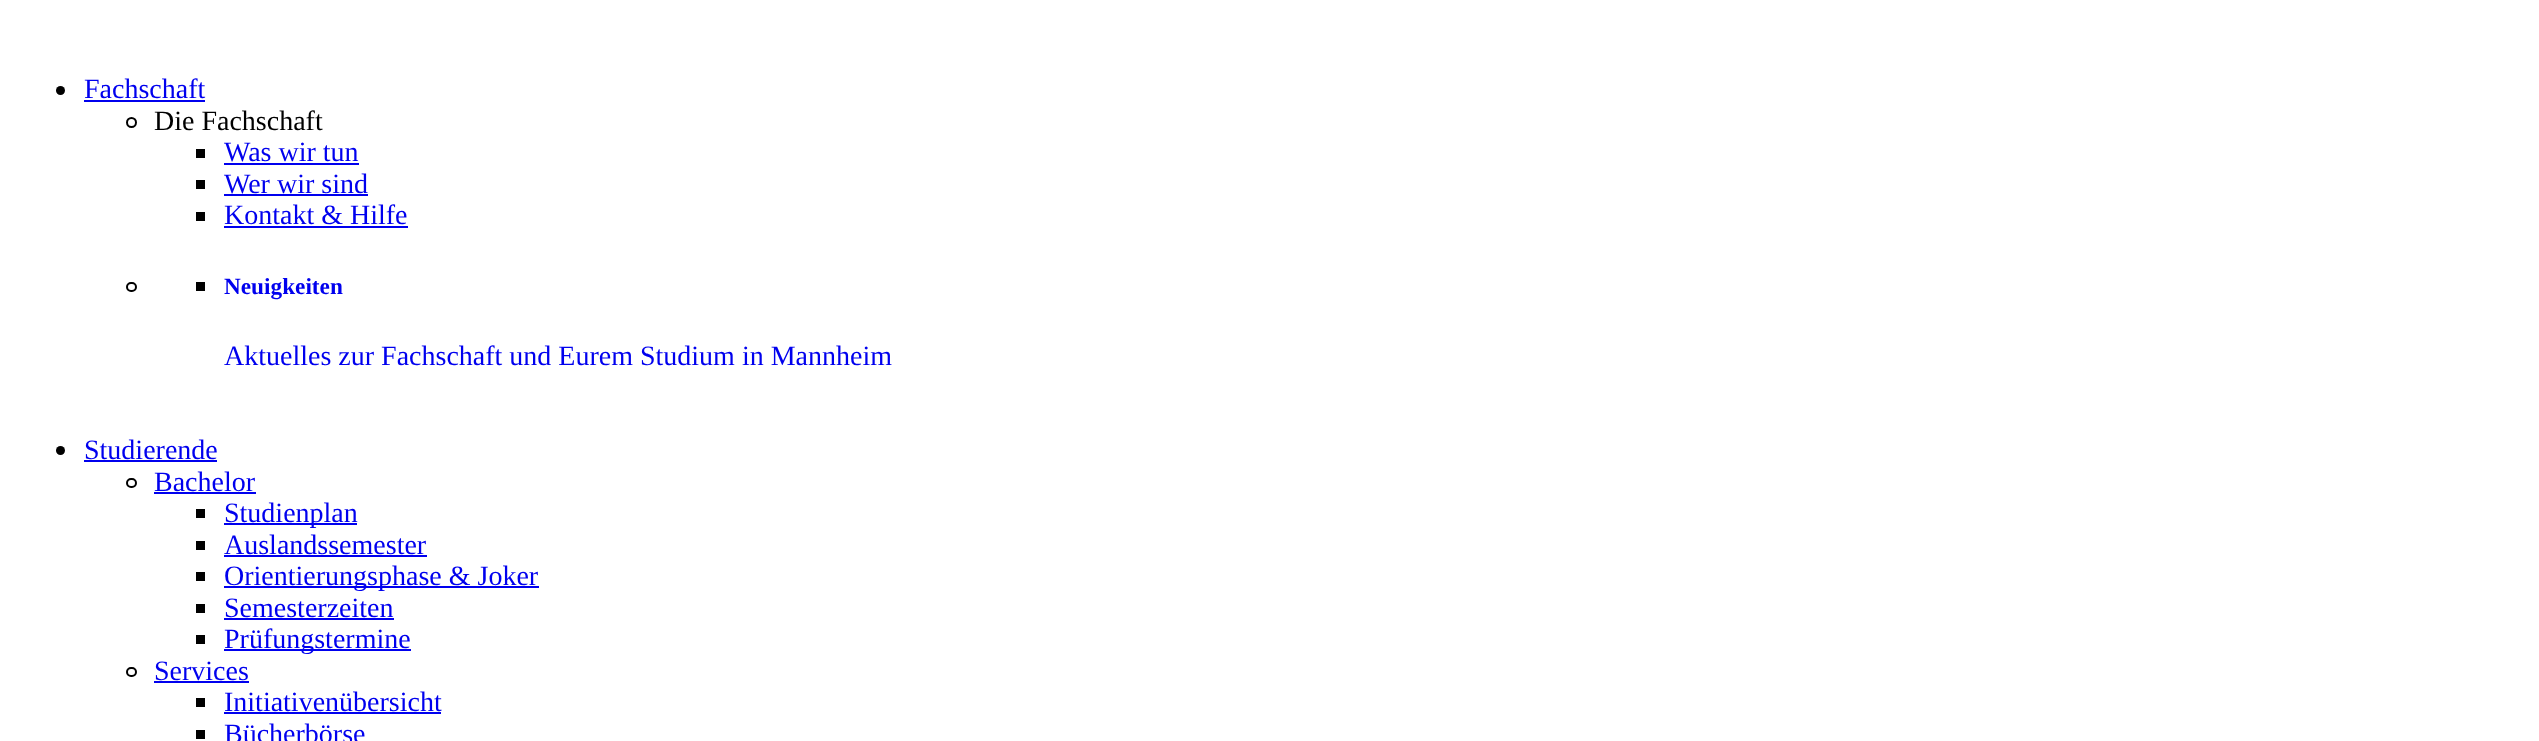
async function draw(canvas) {
	canvas.width = 2539;
	canvas.height = 741;
	const c = canvas.getContext('2d');
	c.miterLimit = 4;
	c.fontKerning = 'normal';

	c.fillStyle = '#fff';
	c.fillRect(0, 0, 2539, 741);
	c.fillStyle = '#000';
	c.beginPath();
	c.arc(60.5, 90.5, 4.5, 0, 2 * Math.PI);
	c.fill();
	c.font = '28px Liberation Serif';
	c.fillStyle = '#00e';
	c.fillText('Fachschaft', 84, 98);
	c.fillRect(84, 100, 121, 2);
	c.beginPath();
	c.arc(131.5, 122.5, 4.5, 0, 2 * Math.PI);
	c.strokeStyle = '#000';
	c.lineWidth = 2;
	c.stroke();
	c.fillStyle = '#000';
	c.fillText('Die Fachschaft', 154, 130);
	c.fillRect(196, 149, 9, 9);
	c.fillStyle = '#00e';
	c.fillText('Was wir tun', 224, 161);
	c.fillRect(224, 163, 135, 2);
	c.fillStyle = '#000';
	c.fillRect(196, 180, 9, 9);
	c.fillStyle = '#00e';
	c.fillText('Wer wir sind', 224, 193);
	c.fillRect(224, 194, 144, 2);
	c.fillStyle = '#000';
	c.fillRect(196, 212, 9, 9);
	c.fillStyle = '#00e';
	c.fillText('Kontakt & Hilfe', 224, 224);
	c.fillRect(224, 226, 184, 2);
	c.beginPath();
	c.roundRect(127, 283, 9, 8, 4);
	c.stroke();
	c.fillStyle = '#000';
	c.fillRect(196, 282, 9, 9);
	c.font = 'bold 23.25px Liberation Serif';
	c.fillStyle = '#00e';
	c.fillText('Neuigkeiten', 224, 294);
	c.font = '28px Liberation Serif';
	c.fillText('Aktuelles zur Fachschaft und Eurem Studium in Mannheim', 224, 365);
	c.fillStyle = '#000';
	c.beginPath();
	c.arc(60.5, 450.5, 4.5, 0, 2 * Math.PI);
	c.fill();
	c.fillStyle = '#00e';
	c.fillText('Studierende', 84, 459);
	c.fillRect(84, 460, 133, 2);
	c.beginPath();
	c.roundRect(127, 479, 9, 8, 4);
	c.stroke();
	c.fillText('Bachelor', 154, 491);
	for (const [x, y, w, h, color] of [
		[154, 492, 102, 2, '#00e'],
		[196, 509, 9, 9, '#000'],
		[224, 523, 133, 2, '#00e'],
	]) {
		c.fillStyle = color;
		c.fillRect(x, y, w, h);
	}
	c.fillText('Studienplan', 224, 522);
	c.fillStyle = '#000';
	c.fillRect(196, 541, 9, 9);
	c.fillStyle = '#00e';
	c.fillText('Auslandssemester', 224, 554);
	for (const [x, y, w, h, color] of [
		[224, 555, 203, 2, '#00e'],
		[196, 572, 9, 9, '#000'],
		[224, 586, 315, 2, '#00e'],
	]) {
		c.fillStyle = color;
		c.fillRect(x, y, w, h);
	}
	c.fillText('Orientierungsphase & Joker', 224, 585);
	c.fillStyle = '#000';
	c.fillRect(196, 604, 9, 9);
	c.fillStyle = '#00e';
	c.fillText('Semesterzeiten', 224, 617);
	for (const [x, y, w, h, color] of [
		[224, 618, 170, 2, '#00e'],
		[196, 635, 9, 9, '#000'],
		[224, 649, 187, 2, '#00e'],
	]) {
		c.fillStyle = color;
		c.fillRect(x, y, w, h);
	}
	c.fillText('Prüfungstermine', 224, 648);
	c.beginPath();
	c.roundRect(127, 668, 9, 8, 4);
	c.stroke();
	c.fillText('Services', 154, 680);
	c.fillRect(154, 681, 95, 2);
	c.fillStyle = '#000';
	c.fillRect(196, 698, 9, 9);
	c.fillStyle = '#00e';
	c.fillText('Initiativenübersicht', 224, 711);
	c.fillRect(224, 712, 217, 2);
	c.fillStyle = '#000';
	c.fillRect(196, 730, 9, 9);
	c.fillStyle = '#00e';
	c.fillText('Bücherbörse', 224, 743);
}

draw(document.querySelector('canvas'));
